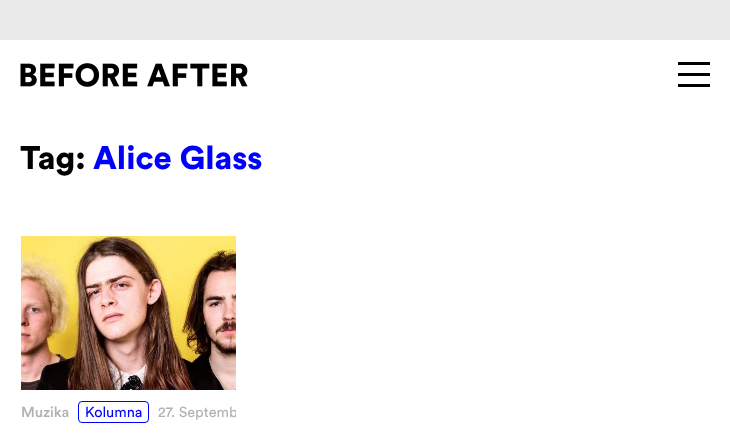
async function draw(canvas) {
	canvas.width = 730;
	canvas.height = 434;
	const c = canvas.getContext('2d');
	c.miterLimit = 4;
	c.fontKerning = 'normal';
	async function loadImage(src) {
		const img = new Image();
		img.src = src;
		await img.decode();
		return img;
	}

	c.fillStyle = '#fff';
	c.fillRect(0, 0, 730, 434);
	c.fillStyle = '#eaeaea';
	c.fillRect(0, 0, 730, 40);
	c.drawImage(await loadImage('img1.png'), 20, 63, 228, 24);
	for (const [x, y, w, h, color] of [
		[678, 73, 32, 3, '#000'],
		[678, 62, 32, 3, '#000'],
		[678, 84, 32, 3, '#000'],
	]) {
		c.fillStyle = color;
		c.fillRect(x, y, w, h);
	}
	c.font = '900 32.5px Circular';
	c.fillText('Tag:', 20, 169);
	c.fillStyle = '#00f';
	c.fillText('Alice Glass', 93, 169);
	c.drawImage(await loadImage('img2.png'), 21, 236, 215, 154);
	c.font = '500 14.5px Circular';
	c.fillStyle = '#b2b2b2';
	c.fillText('Muzika', 21, 417);
	c.beginPath();
	c.roundRect(78.5, 401.5, 70, 21, 3.5);
	c.strokeStyle = '#00f';
	c.stroke();
	c.font = '14.5px Circular';
	c.fillStyle = '#00f';
	c.fillText('Kolumna', 85, 417);
	c.save();
	c.beginPath();
	c.rect(21, 236, 215, 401);
	c.clip();
	c.fillStyle = '#b2b2b2';
	c.fillText('27. Septemb', 158, 417);
	c.restore();
}

draw(document.querySelector('canvas'));
